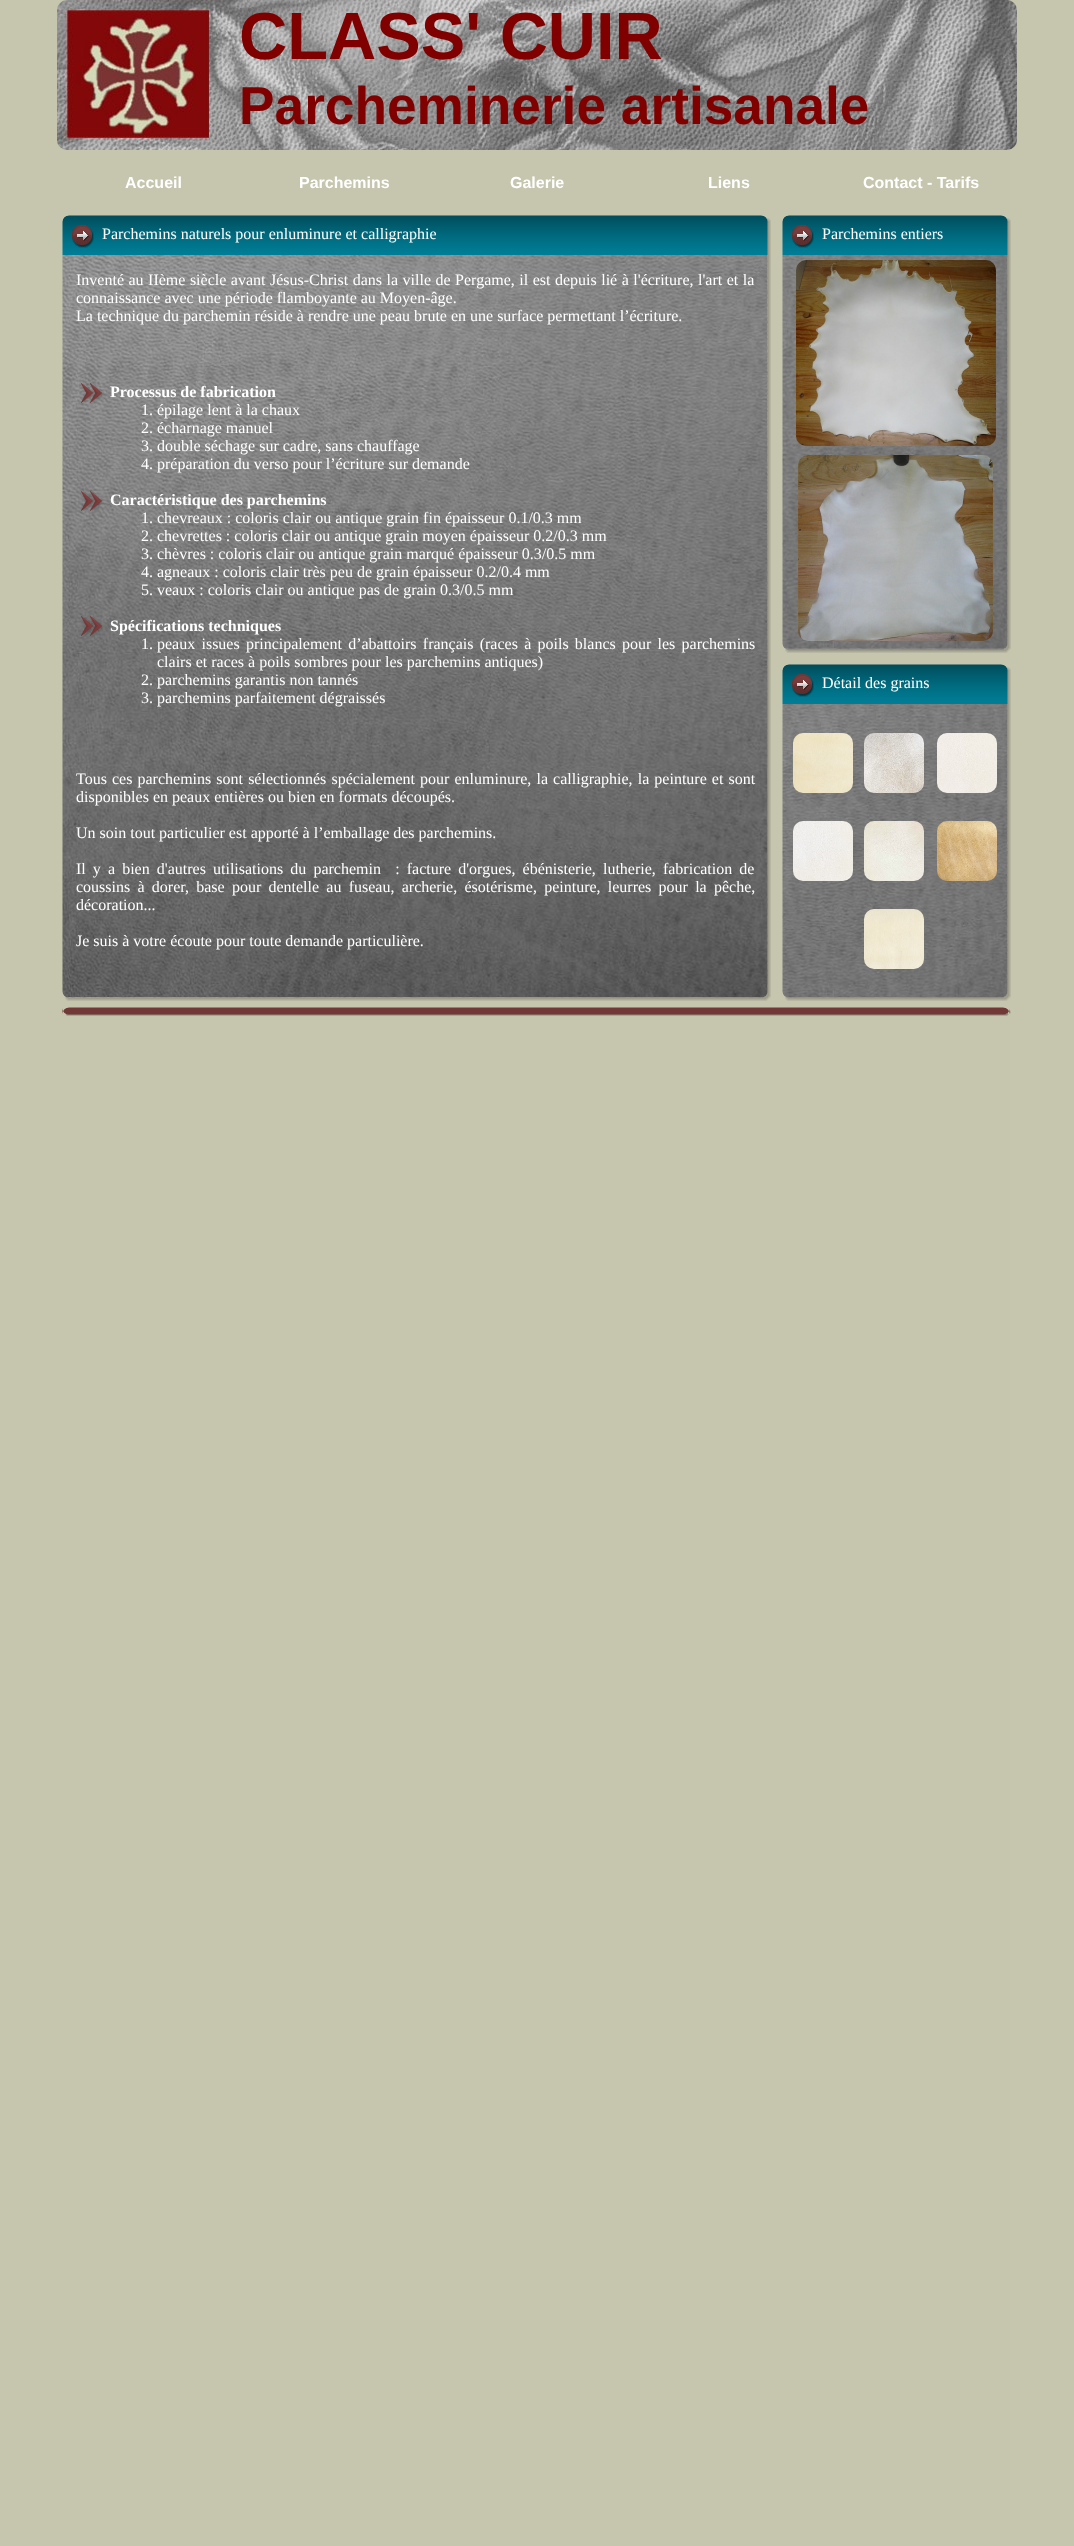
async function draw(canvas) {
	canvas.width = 1074;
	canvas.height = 2546;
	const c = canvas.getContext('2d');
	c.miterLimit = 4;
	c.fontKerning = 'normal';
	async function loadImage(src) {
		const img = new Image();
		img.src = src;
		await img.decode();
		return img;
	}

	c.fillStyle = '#c6c5ae';
	c.fillRect(0, 0, 1074, 2546);
	c.drawImage(await loadImage('img1.png'), 57, 0, 960, 150);
	c.font = 'bold 66.75px Liberation Sans';
	c.fillStyle = '#800000';
	c.fillText('CLASS\' CUIR', 239, 59);
	c.font = 'bold 53.25px Liberation Sans';
	c.fillText('Parcheminerie artisanale', 239, 124);
	c.font = 'bold 16px Liberation Sans';
	c.fillStyle = '#fff';
	for (const [text, x, y] of [
		['Accueil', 125, 188],
		['Parchemins', 299, 188],
		['Galerie', 510, 188],
		['Liens', 708, 188],
		['Contact - Tarifs', 863, 188],
	]) {
		c.fillText(text, x, y);
	}
	c.drawImage(await loadImage('img2.png'), 62, 215, 709, 786);
	c.drawImage(await loadImage('img3.png'), 72, 225, 22, 23);
	c.font = '16px Liberation Serif';
	c.fillText('Parchemins naturels pour enluminure et calligraphie', 102, 239);
	c.wordSpacing = '0.5px';
	c.fillText('Inventé au IIème siècle avant Jésus-Christ dans la ville de Pergame, il est depuis lié à l\'écriture, l\'art et la', 76, 285);
	c.wordSpacing = '0px';
	c.fillText('connaissance avec une période flamboyante au Moyen-âge.', 76, 303);
	c.fillText('La technique du parchemin réside à rendre une peau brute en une surface permettant l’écriture.', 76, 321);
	c.drawImage(await loadImage('img4.png'), 80, 382, 24, 22);
	c.font = 'bold 16px Liberation Serif';
	c.fillText('Processus de fabrication', 110, 397);
	c.font = '16px Liberation Serif';
	for (const [text, x, y] of [
		['1. épilage lent à la chaux', 141, 415],
		['2. écharnage manuel', 141, 433],
		['3. double séchage sur cadre, sans chauffage', 141, 451],
		['4. préparation du verso pour l’écriture sur demande', 141, 469],
	]) {
		c.fillText(text, x, y);
	}
	c.font = 'bold 16px Liberation Serif';
	c.fillText('Caractéristique des parchemins', 110, 505);
	c.font = '16px Liberation Serif';
	for (const [text, x, y] of [
		['1. chevreaux : coloris clair ou antique grain fin épaisseur 0.1/0.3 mm', 141, 523],
		['2. chevrettes : coloris clair ou antique grain moyen épaisseur 0.2/0.3 mm', 141, 541],
		['3. chèvres : coloris clair ou antique grain marqué épaisseur 0.3/0.5 mm', 141, 559],
		['4. agneaux : coloris clair très peu de grain épaisseur 0.2/0.4 mm', 141, 577],
		['5. veaux : coloris clair ou antique pas de grain 0.3/0.5 mm', 141, 595],
	]) {
		c.fillText(text, x, y);
	}
	c.font = 'bold 16px Liberation Serif';
	c.fillText('Spécifications techniques', 110, 631);
	c.font = '16px Liberation Serif';
	c.fillText('1.', 141, 649);
	c.wordSpacing = '2.25px';
	c.fillText('peaux issues principalement d’abattoirs français (races à poils blancs pour les parchemins', 157, 649);
	c.wordSpacing = '0px';
	for (const [text, x, y] of [
		['clairs et races à poils sombres pour les parchemins antiques)', 157, 667],
		['2. parchemins garantis non tannés', 141, 685],
		['3. parchemins parfaitement dégraissés', 141, 703],
	]) {
		c.fillText(text, x, y);
	}
	c.drawImage(await loadImage('img5.png'), 80, 490, 24, 22);
	c.drawImage(await loadImage('img6.png'), 81, 616, 23, 21);
	c.wordSpacing = '1.1px';
	c.fillText('Tous ces parchemins sont sélectionnés spécialement pour enluminure, la calligraphie, la peinture et sont', 76, 784);
	c.wordSpacing = '0px';
	c.fillText('disponibles en peaux entières ou bien en formats découpés.', 76, 802);
	c.fillText('Un soin tout particulier est apporté à l’emballage des parchemins.', 76, 838);
	c.wordSpacing = '3.1px';
	c.fillText('Il y a bien d\'autres utilisations du parchemin  : facture d\'orgues, ébénisterie, lutherie, fabrication de', 76, 874);
	c.wordSpacing = '3.25px';
	c.fillText('coussins à dorer, base pour dentelle au fuseau, archerie, ésotérisme, peinture, leurres pour la pêche,', 76, 892);
	c.wordSpacing = '0px';
	c.fillText('décoration...', 76, 910);
	c.fillText('Je suis à votre écoute pour toute demande particulière.', 76, 946);
	c.drawImage(await loadImage('img7.png'), 782, 215, 229, 438);
	c.drawImage(await loadImage('img3.png'), 792, 225, 22, 23);
	c.fillText('Parchemins entiers', 822, 239);
	c.drawImage(await loadImage('img8.png'), 796, 260, 200, 186);
	c.drawImage(await loadImage('img9.png'), 798, 455, 195, 186);
	c.drawImage(await loadImage('img10.png'), 782, 664, 229, 337);
	c.drawImage(await loadImage('img3.png'), 792, 674, 22, 23);
	c.fillText('Détail des grains', 822, 688);
	c.drawImage(await loadImage('img11.png'), 793, 733, 60, 60);
	c.drawImage(await loadImage('img12.png'), 864, 733, 60, 60);
	c.drawImage(await loadImage('img13.png'), 937, 733, 60, 60);
	c.drawImage(await loadImage('img14.png'), 793, 821, 60, 60);
	c.drawImage(await loadImage('img15.png'), 864, 821, 60, 60);
	c.drawImage(await loadImage('img16.png'), 937, 821, 60, 60);
	c.drawImage(await loadImage('img17.png'), 864, 909, 60, 60);
	c.drawImage(await loadImage('img18.png'), 62, 1007, 949, 9);
}

draw(document.querySelector('canvas'));
